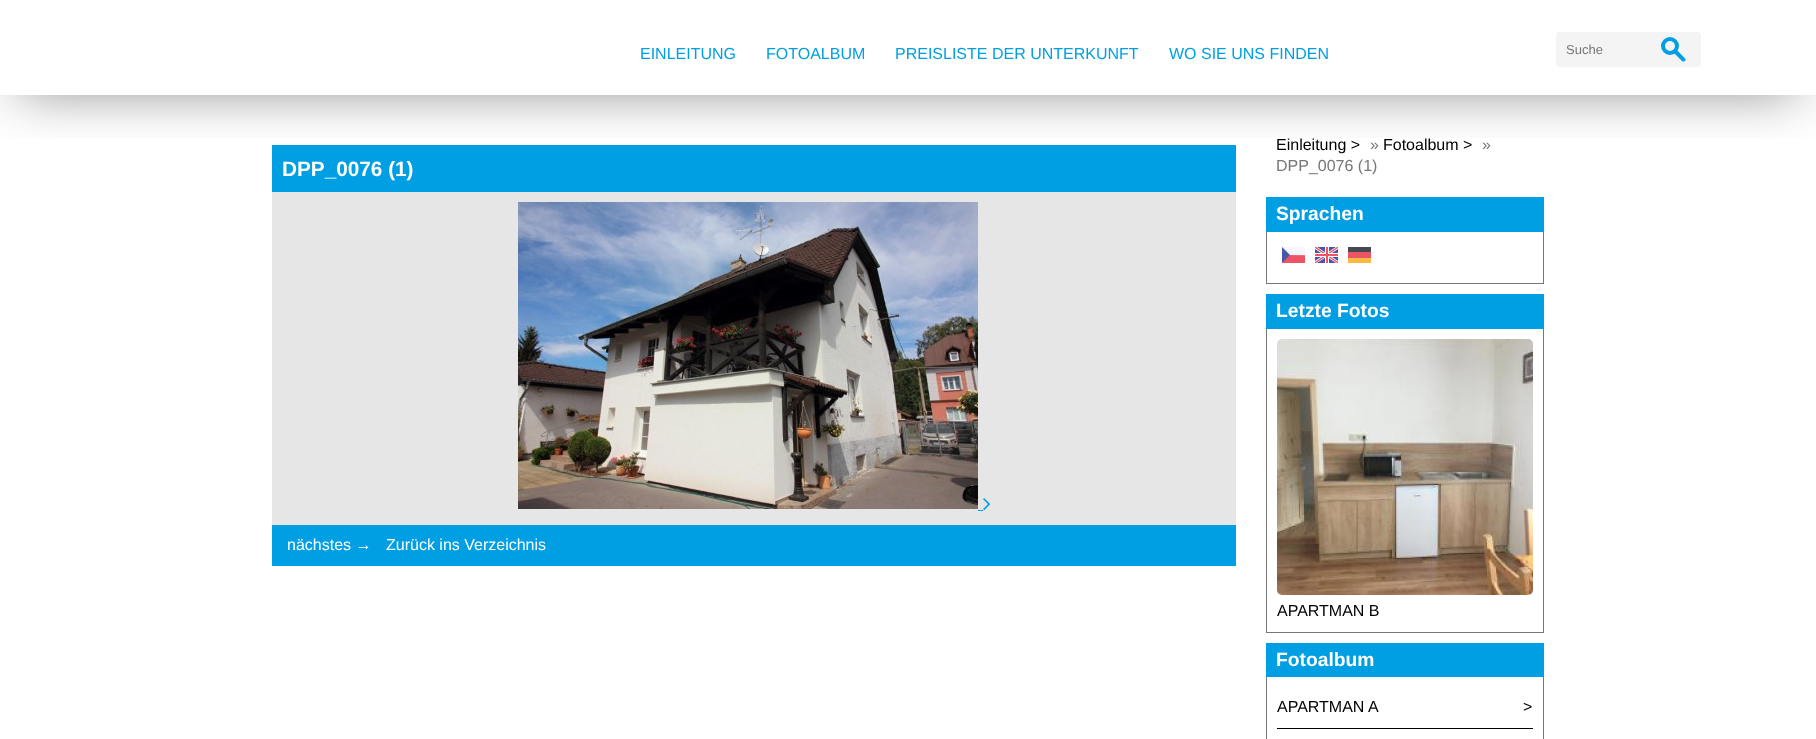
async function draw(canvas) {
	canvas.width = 1816;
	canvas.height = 739;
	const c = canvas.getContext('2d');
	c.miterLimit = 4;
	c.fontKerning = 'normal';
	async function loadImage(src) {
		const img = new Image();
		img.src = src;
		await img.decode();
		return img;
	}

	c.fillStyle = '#fff';
	c.fillRect(0, 0, 1816, 739);
	c.fillStyle = '#009fe3';
	c.fillRect(272, 145, 964, 47);
	c.save();
	c.beginPath();
	c.rect(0, 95, 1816, 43);
	c.clip();
	c.fillStyle = '#00000073';
	c.filter = 'blur(27px)';
	c.beginPath();
	c.rect(18, 33, 1780, 59);
	c.fill();
	c.filter = 'none';
	c.restore();
	c.font = '16px Liberation Sans';
	for (const [text, x, y] of [
		['EINLEITUNG', 640, 59],
		['FOTOALBUM', 766, 59],
		['PREISLISTE DER UNTERKUNFT', 895, 59],
		['WO SIE UNS FINDEN', 1169, 59],
	]) {
		c.fillText(text, x, y);
	}
	c.fillStyle = '#f4f4f4';
	c.beginPath();
	c.roundRect(1556, 32, 145, 35, 4);
	c.fill();
	c.font = '13px Liberation Sans';
	c.fillStyle = '#777';
	c.fillText('Suche', 1566, 54);
	c.beginPath();
	c.arc(1670, 46, 7, 0, 2 * Math.PI);
	c.strokeStyle = '#009fe3';
	c.lineWidth = 4;
	c.stroke();
	c.fillStyle = '#009fe3';
	c.beginPath();
	c.moveTo(1673.5, 52.5);
	c.lineTo(1676.5, 49.5);
	c.lineTo(1685.5, 59);
	c.bezierCurveTo(1686, 61, 1683.5, 62.5, 1682, 61);
	c.closePath();
	c.fill();
	c.font = 'bold 20.75px Liberation Sans';
	c.fillStyle = '#fff';
	c.fillText('DPP_0076 (1)', 282, 176);
	c.fillStyle = '#e6e6e6';
	c.fillRect(272, 192, 964, 333);
	c.drawImage(await loadImage('img1.png'), 518, 202, 460, 307);
	c.drawImage(await loadImage('img2.png'), 983, 498, 7, 12);
	c.fillStyle = '#009fe3';
	c.fillRect(978, 510, 5, 1);
	c.fillRect(272, 525, 964, 41);
	c.font = '16px Liberation Sans';
	c.fillStyle = '#fff';
	c.fillText('nächstes →', 287, 550);
	c.fillText('Zurück ins Verzeichnis', 386, 550);
	c.fillStyle = '#000';
	c.fillText('Einleitung >', 1276, 150);
	c.fillStyle = '#777';
	c.fillText('»', 1370, 150);
	c.fillStyle = '#000';
	c.fillText('Fotoalbum >', 1383, 150);
	c.fillStyle = '#777';
	c.fillText('»', 1482, 150);
	c.fillText('DPP_0076 (1)', 1276, 171);
	c.fillStyle = '#009fe3';
	c.fillRect(1266, 197, 278, 35);
	c.font = 'bold 19.25px Liberation Sans';
	c.fillStyle = '#fff';
	c.fillText('Sprachen', 1276, 220);
	for (const [x, y, w, h, color] of [
		[1543, 232, 1, 52, '#777'],
		[1266, 283, 278, 1, '#777'],
		[1266, 232, 1, 52, '#777'],
	]) {
		c.fillStyle = color;
		c.fillRect(x, y, w, h);
	}
	c.drawImage(await loadImage('img3.png'), 1282, 247, 23, 16);
	c.drawImage(await loadImage('img4.png'), 1315, 247, 23, 16);
	c.drawImage(await loadImage('img5.png'), 1348, 247, 23, 16);
	c.fillStyle = '#009fe3';
	c.fillRect(1266, 294, 278, 35);
	c.fillStyle = '#fff';
	c.fillText('Letzte Fotos', 1276, 317);
	for (const [x, y, w, h, color] of [
		[1543, 329, 1, 304, '#777'],
		[1266, 632, 278, 1, '#777'],
		[1266, 329, 1, 304, '#777'],
	]) {
		c.fillStyle = color;
		c.fillRect(x, y, w, h);
	}
	c.drawImage(await loadImage('img6.png'), 1277, 339, 256, 256);
	c.font = '16px Liberation Sans';
	c.fillStyle = '#000';
	c.fillText('APARTMAN B', 1277, 616);
	c.fillStyle = '#009fe3';
	c.fillRect(1266, 643, 278, 34);
	c.font = 'bold 19.25px Liberation Sans';
	c.fillStyle = '#fff';
	c.fillText('Fotoalbum', 1276, 666);
	for (const [x, y, w, h, color] of [
		[1543, 677, 1, 62, '#777'],
		[1266, 677, 1, 62, '#777'],
		[1277, 728, 256, 1, '#000'],
	]) {
		c.fillStyle = color;
		c.fillRect(x, y, w, h);
	}
	c.font = '16px Liberation Sans';
	c.fillText('APARTMAN A', 1277, 712);
	c.fillText('>', 1523, 712);
}

draw(document.querySelector('canvas'));
